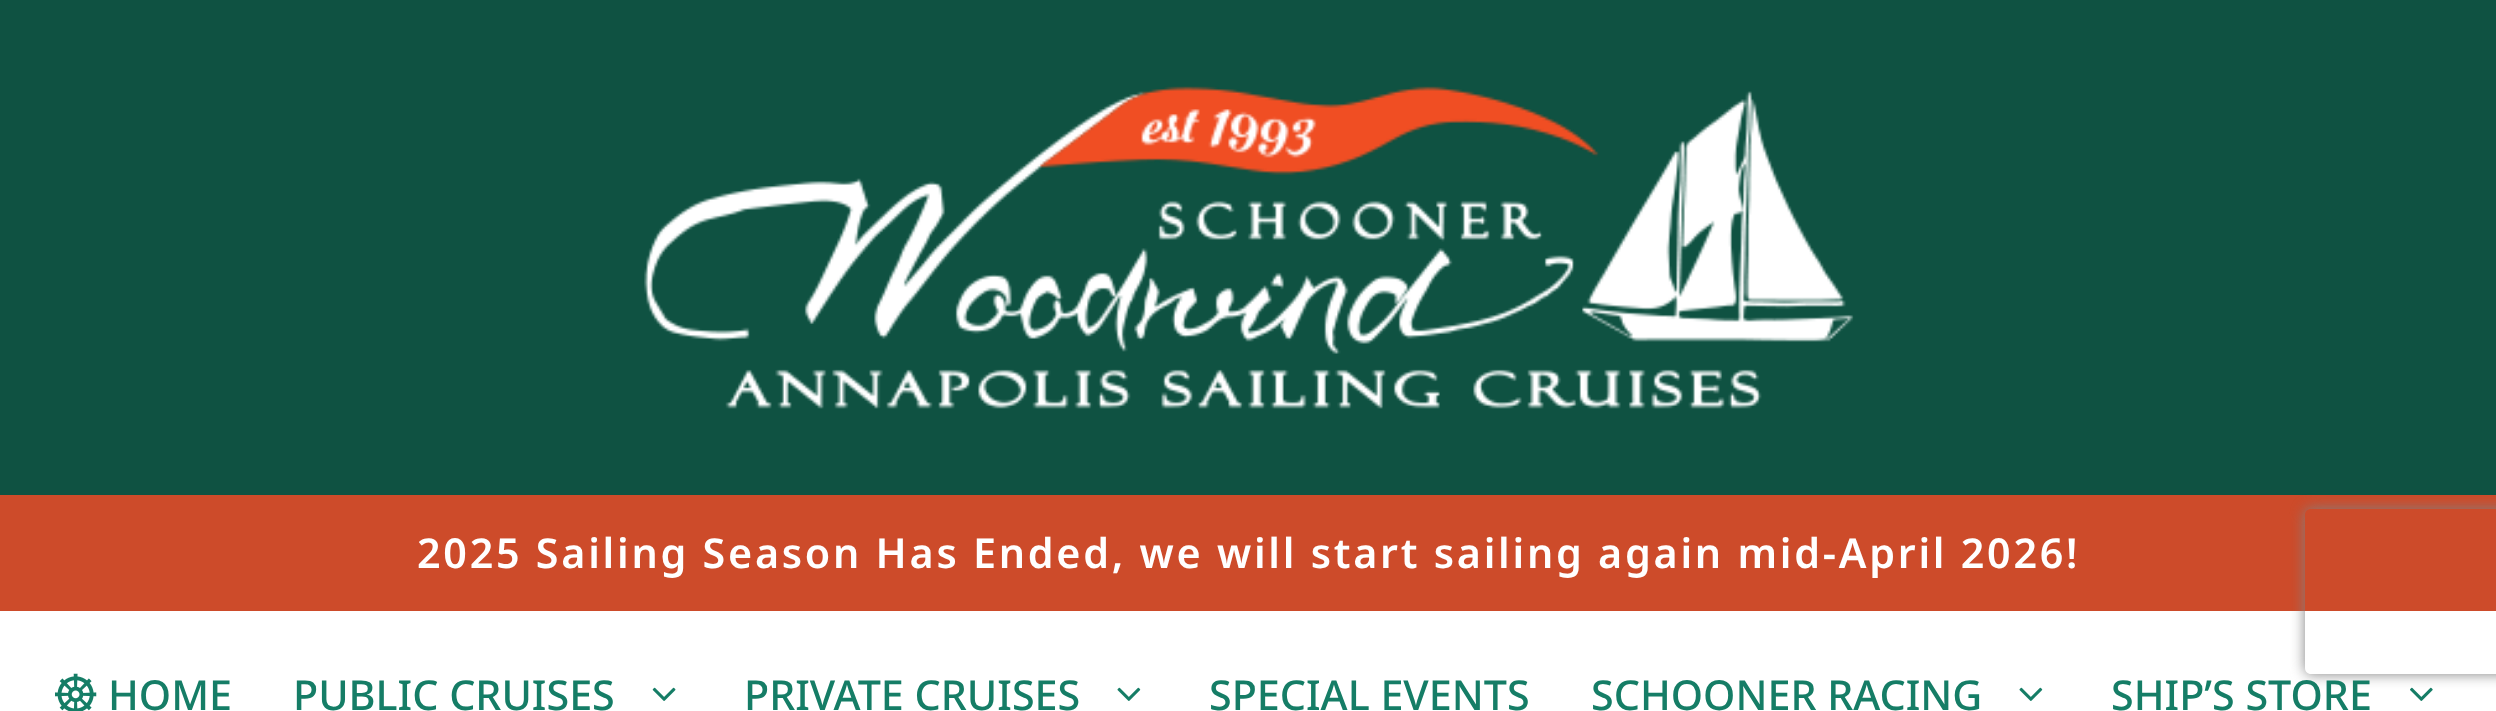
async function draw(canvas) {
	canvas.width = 2496;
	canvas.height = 711;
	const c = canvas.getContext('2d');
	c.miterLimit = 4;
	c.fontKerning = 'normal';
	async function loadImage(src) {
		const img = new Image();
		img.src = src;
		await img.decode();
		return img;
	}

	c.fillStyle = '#fff';
	c.fillRect(0, 0, 2496, 711);
	c.fillStyle = '#0f5242';
	c.fillRect(0, 0, 2496, 495);
	c.drawImage(await loadImage('img1.png'), 644, 86, 1210, 323);
	c.fillStyle = '#cd4b2a';
	c.fillRect(0, 495, 2496, 116);
	c.letterSpacing = '2.75px';
	c.font = '600 41.25px Noto Sans';
	c.fillStyle = '#fff';
	c.fillText('2025 Sailing Season Has Ended, we will start sailing again mid-April 2026!', 417, 568);
	c.drawImage(await loadImage('img5.png'), 2410, 687, 23, 14);
	c.save();
	c.beginPath();
	c.moveTo(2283, 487);
	c.lineTo(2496, 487);
	c.lineTo(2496, 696);
	c.lineTo(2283, 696);
	c.closePath();
	c.moveTo(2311, 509);
	c.lineTo(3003, 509);
	c.bezierCurveTo(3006.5, 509, 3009, 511.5, 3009, 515);
	c.lineTo(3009, 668);
	c.bezierCurveTo(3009, 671.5, 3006.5, 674, 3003, 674);
	c.lineTo(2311, 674);
	c.bezierCurveTo(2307.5, 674, 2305, 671.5, 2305, 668);
	c.lineTo(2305, 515);
	c.bezierCurveTo(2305, 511.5, 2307.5, 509, 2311, 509);
	c.closePath();
	c.clip('evenodd');
	c.fillStyle = '#808080';
	c.filter = 'blur(7px)';
	c.beginPath();
	c.roundRect(2305, 509, 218, 165, 6);
	c.fill();
	c.filter = 'none';
	c.restore();
	c.drawImage(await loadImage('img2.png'), 55, 673, 42, 38);
	c.letterSpacing = '0px';
	c.font = '500 41.25px Noto Sans';
	c.fillStyle = '#157d66';
	c.fillText('HOME', 108, 710);
	c.fillText('PUBLIC CRUISES', 293, 710);
	c.drawImage(await loadImage('img3.png'), 652, 687, 24, 14);
	c.fillText('PRIVATE CRUISES', 744, 710);
	c.drawImage(await loadImage('img4.png'), 1117, 687, 24, 14);
	c.fillText('SPECIAL EVENTS', 1209, 710);
	c.fillText('SCHOONER RACING', 1591, 710);
	c.drawImage(await loadImage('img4.png'), 2019, 687, 24, 14);
	c.fillText('SHIP’S STORE', 2111, 710);
}

draw(document.querySelector('canvas'));
